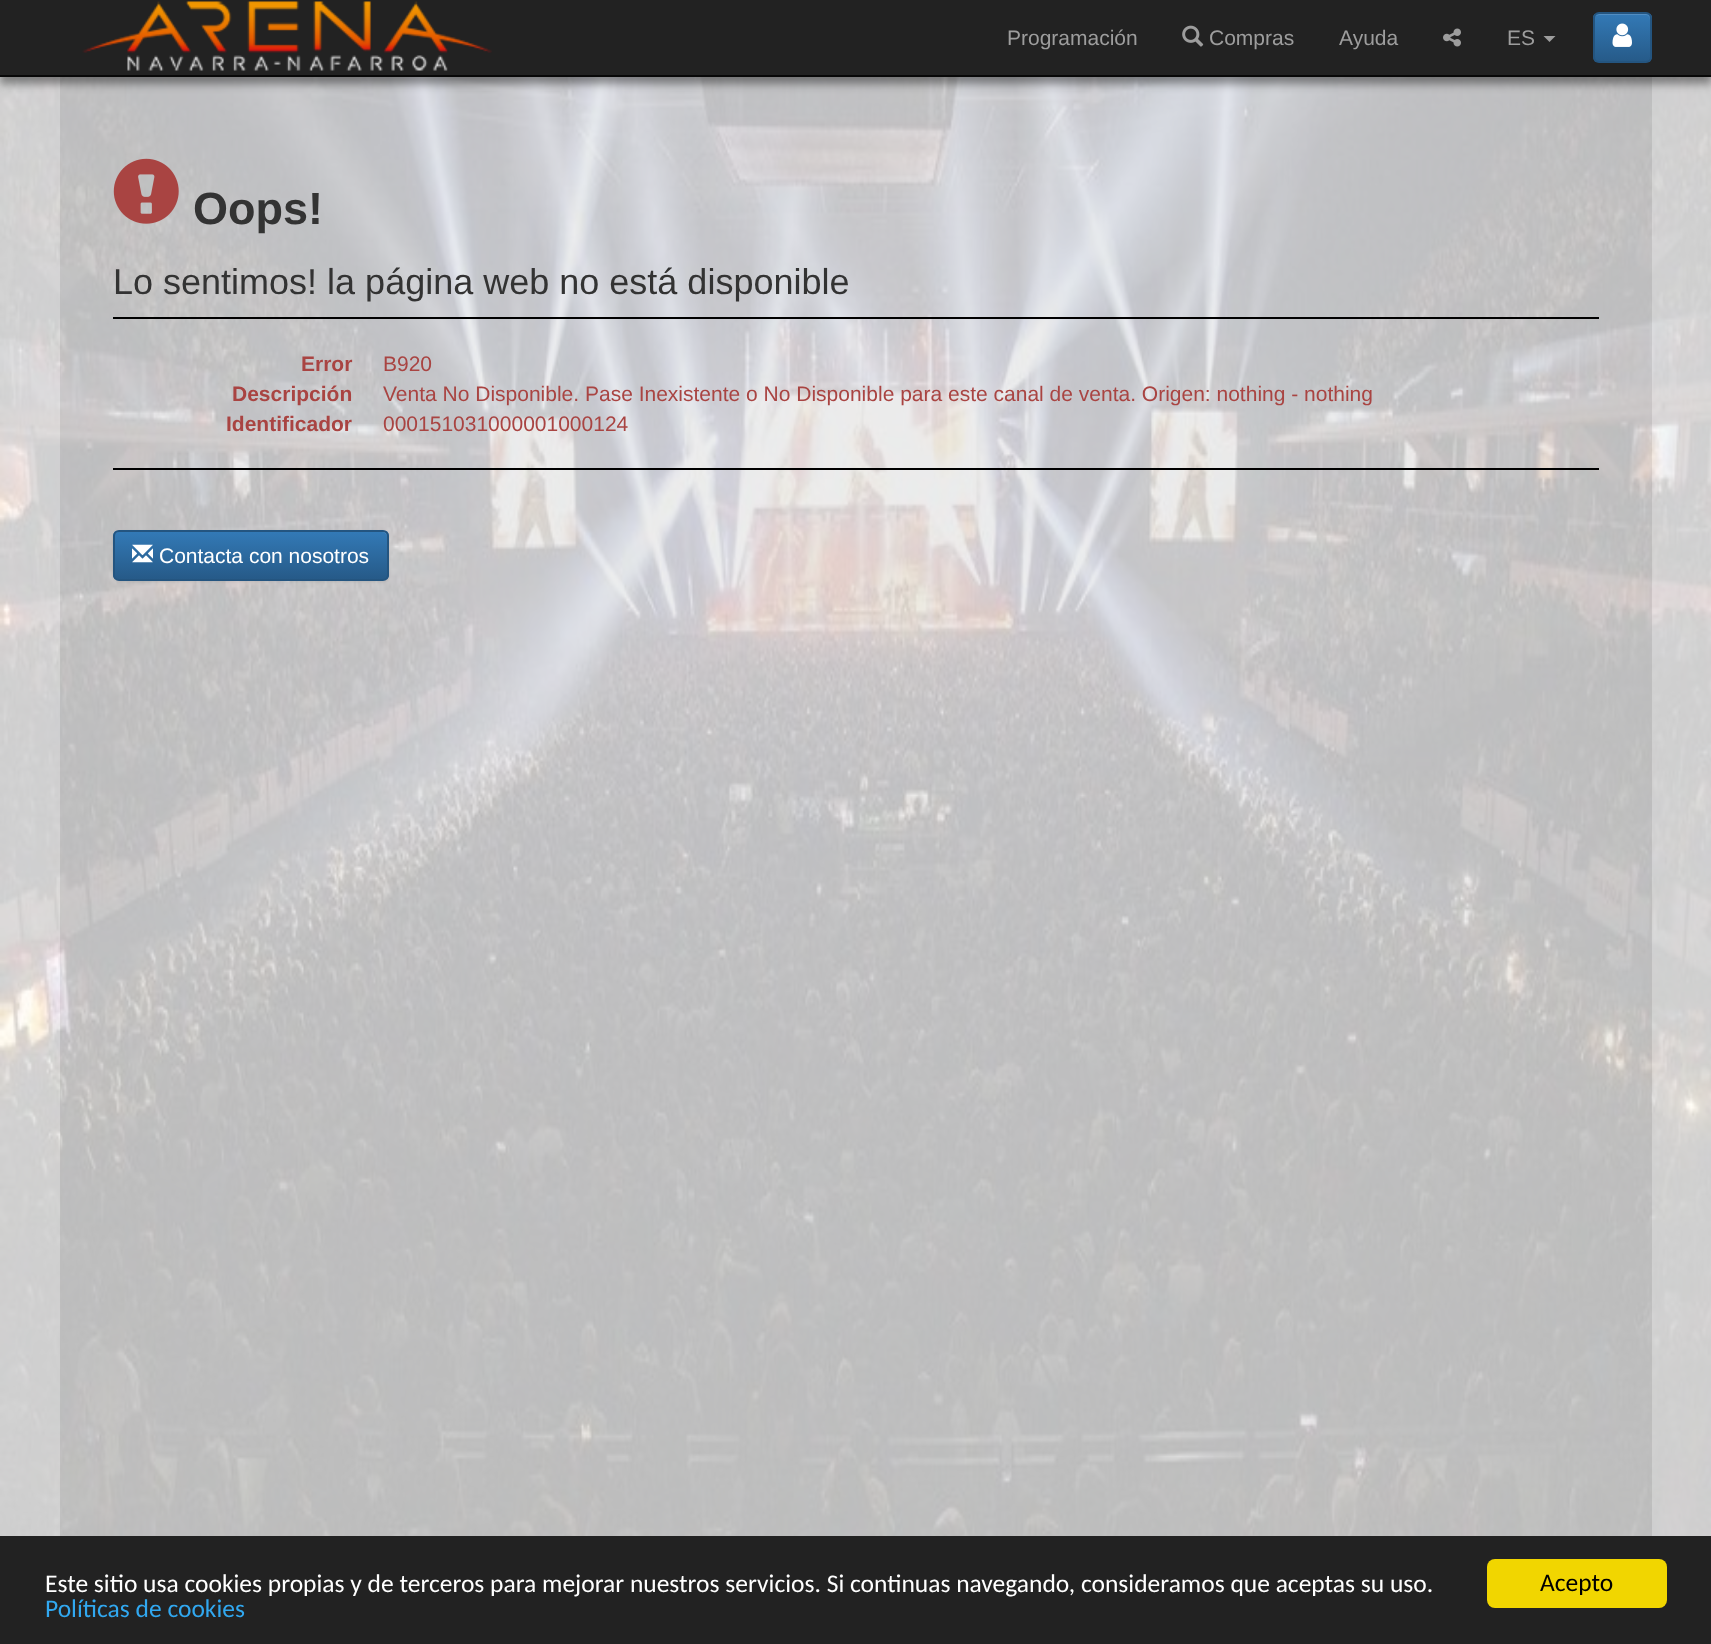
async function draw(canvas) {
	canvas.width = 1711;
	canvas.height = 1644;
	const c = canvas.getContext('2d');
	c.miterLimit = 4;
	c.fontKerning = 'normal';
	async function loadImage(src) {
		const img = new Image();
		img.src = src;
		await img.decode();
		return img;
	}
	let gradient;

	c.fillStyle = '#fff';
	c.fillRect(0, 0, 1711, 1644);
	c.fillStyle = '#e9e9e9';
	c.fillRect(60, 77, 1592, 1459);
	c.drawImage(await loadImage('img5.png'), 0, 77, 1711, 1459);
	c.fillStyle = '#00000066';
	c.filter = 'blur(4px)';
	c.beginPath();
	c.rect(0, 8, 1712, 76);
	c.fill();
	c.filter = 'none';
	c.fillStyle = '#222';
	c.fillRect(0, 0, 1711, 75);
	c.fillStyle = '#080808';
	c.fillRect(0, 75, 1711, 2);
	c.drawImage(await loadImage('img1.png'), 82, 1, 410, 70);
	c.font = '21px Liberation Sans';
	c.fillStyle = '#9d9d9d';
	c.fillText('Programación', 1007, 45);
	c.drawImage(await loadImage('img2.png'), 1182, 25, 22, 22);
	c.fillText('Compras', 1209, 45);
	c.fillText('Ayuda', 1339, 45);
	c.drawImage(await loadImage('img3.png'), 1443, 28, 18, 19);
	c.fillText('ES', 1507, 45);
	c.beginPath();
	c.moveTo(1543.5, 36);
	c.lineTo(1555.5, 36);
	c.lineTo(1549.5, 42);
	c.closePath();
	c.fill();
	c.save();
	c.beginPath();
	c.roundRect(1593, 12, 59, 51, 6);
	c.clip();
	gradient = c.createLinearGradient(1622, 13, 1622, 62);
	gradient.addColorStop(0, '#337ab7');
	gradient.addColorStop(1, '#265a88');
	c.fillStyle = gradient;
	c.fillRect(1593, 14, 59, 48);
	c.restore();
	c.fillStyle = '#528dc1';
	c.beginPath();
	c.moveTo(1599, 15);
	c.lineTo(1646, 15);
	c.bezierCurveTo(1648, 15, 1650, 17, 1650, 20);
	c.lineTo(1650, 19);
	c.bezierCurveTo(1650, 16, 1648, 14, 1645, 14);
	c.lineTo(1600, 14);
	c.bezierCurveTo(1598, 14, 1597, 15, 1596, 16);
	c.closePath();
	c.fill();
	c.beginPath();
	c.roundRect(1594, 13, 57, 49, 5);
	c.strokeStyle = '#245580';
	c.lineWidth = 2;
	c.stroke();
	c.drawImage(await loadImage('img4.png'), 1612, 23, 20, 24);
	c.drawImage(await loadImage('img6.png'), 113, 158, 66, 66);
	c.font = 'bold 45px Liberation Sans';
	c.fillStyle = '#333';
	c.fillText('Oops!', 193, 224);
	c.font = '36px Liberation Sans';
	c.fillText('Lo sentimos! la página web no está disponible', 113, 294);
	c.fillStyle = '#000';
	c.fillRect(113, 317, 1486, 2);
	c.fillRect(113, 468, 1486, 2);
	c.font = 'bold 21px Liberation Sans';
	c.fillStyle = '#a94442';
	c.fillText('Error', 301, 371);
	c.font = '21px Liberation Sans';
	c.fillText('B920', 383, 371);
	c.font = 'bold 21px Liberation Sans';
	c.fillText('Descripción', 232, 401);
	c.font = '21px Liberation Sans';
	c.fillText('Venta No Disponible. Pase Inexistente o No Disponible para este canal de venta. Origen: nothing - nothing', 383, 401);
	c.font = 'bold 21px Liberation Sans';
	c.fillText('Identificador', 226, 431);
	c.font = '21px Liberation Sans';
	c.fillText('000151031000001000124', 383, 431);
	c.fillStyle = '#00000012';
	c.filter = 'blur(1px)';
	c.beginPath();
	c.roundRect(113, 531, 276, 51, 6);
	c.fill();
	c.filter = 'none';
	c.save();
	c.beginPath();
	c.roundRect(113, 530, 276, 51, 6);
	c.clip();
	gradient = c.createLinearGradient(251, 531, 251, 579);
	gradient.addColorStop(0, '#337ab7');
	gradient.addColorStop(1, '#265a88');
	c.fillStyle = gradient;
	c.fillRect(113, 531, 276, 48);
	c.restore();
	c.fillStyle = '#528ec2';
	c.beginPath();
	c.moveTo(118, 532);
	c.lineTo(382, 532);
	c.bezierCurveTo(385, 532, 387, 535, 387, 537);
	c.bezierCurveTo(387, 534, 385, 531, 382, 531);
	c.lineTo(119, 531);
	c.bezierCurveTo(116, 531, 114, 534, 114, 537);
	c.bezierCurveTo(114, 535, 116, 532, 118, 532);
	c.closePath();
	c.fill();
	c.beginPath();
	c.roundRect(114, 531, 274, 49, 5);
	c.stroke();
	c.drawImage(await loadImage('img7.png'), 132, 544, 21, 19);
	c.fillStyle = '#fff';
	c.fillText('Contacta con nosotros', 159, 563);
	c.fillStyle = '#222';
	c.fillRect(0, 1536, 1711, 108);
	c.font = '25.5px Carlito';
	c.fillStyle = '#fff';
	c.fillText('Este sitio usa cookies propias y de terceros para mejorar nuestros servicios. Si continuas navegando, consideramos que aceptas su uso.', 45, 1592);
	c.fillStyle = '#31a8f0';
	c.fillText('Políticas de cookies', 45, 1617);
	c.fillStyle = '#f1d600';
	c.beginPath();
	c.roundRect(1487, 1559, 180, 49, 8);
	c.fill();
	c.fillStyle = '#000';
	c.fillText('Acepto', 1540, 1591);
}

draw(document.querySelector('canvas'));
